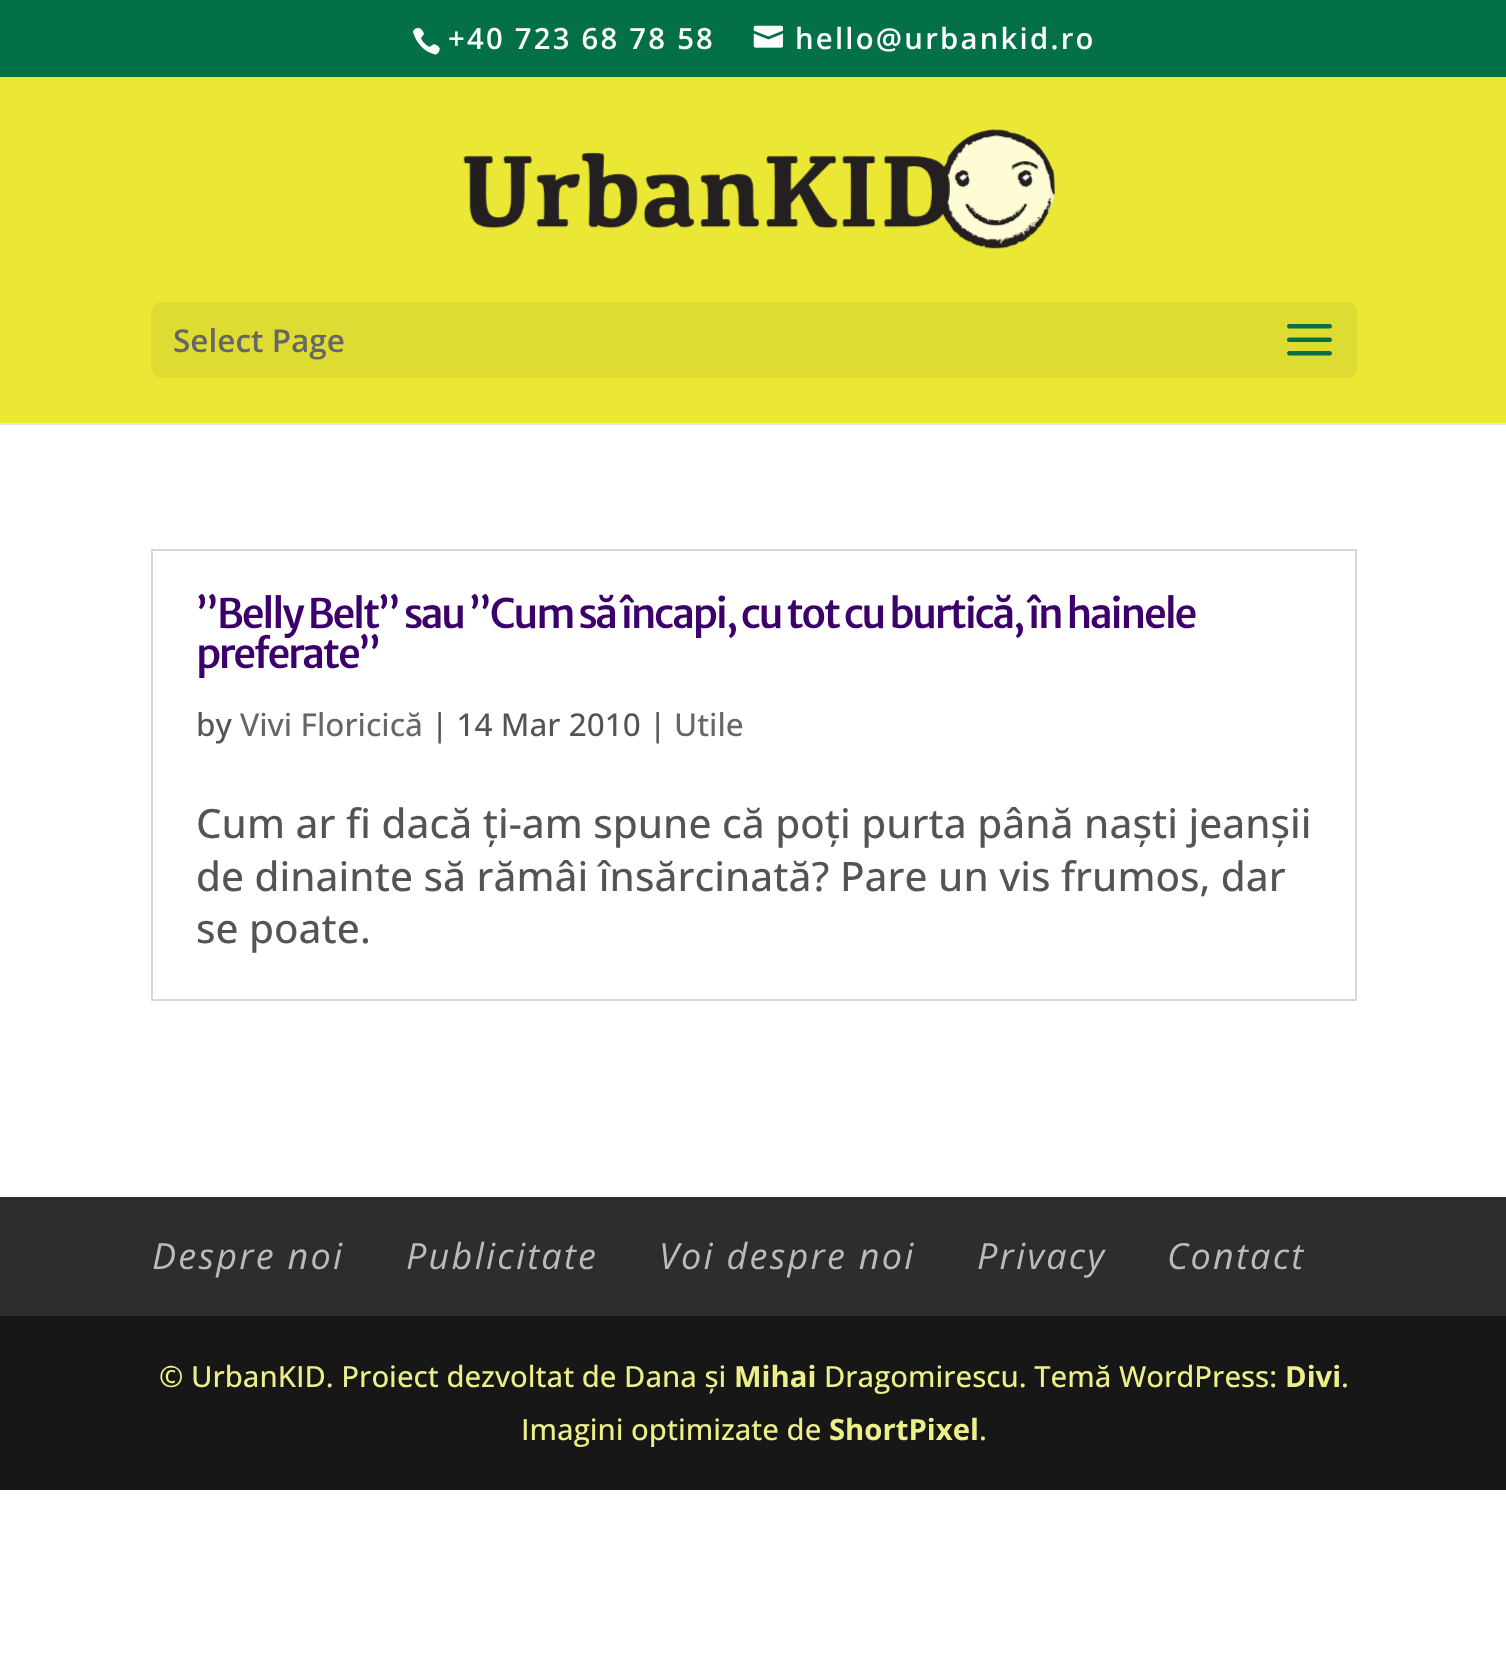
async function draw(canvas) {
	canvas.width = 1506;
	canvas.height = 1663;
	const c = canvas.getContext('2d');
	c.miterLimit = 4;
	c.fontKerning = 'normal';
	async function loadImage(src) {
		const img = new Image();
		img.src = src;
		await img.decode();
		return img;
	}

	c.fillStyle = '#fff';
	c.fillRect(0, 0, 1506, 1663);
	c.fillStyle = '#047048';
	c.fillRect(0, 0, 1506, 77);
	c.drawImage(await loadImage('img1.png'), 413, 27, 27, 28);
	c.letterSpacing = '2.25px';
	c.font = '600 29.25px Open Sans';
	c.fillStyle = '#fff';
	c.fillText('+40 723 68 78 58', 448, 49);
	c.drawImage(await loadImage('img2.png'), 753, 25, 30, 23);
	c.fillText('hello@urbankid.ro', 795, 49);
	c.fillStyle = '#e6e6e6';
	c.beginPath();
	c.moveTo(0, 423);
	c.lineTo(0, 425);
	c.lineTo(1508, 425);
	c.lineTo(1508, 79);
	c.lineTo(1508, 423);
	c.closePath();
	c.fill();
	c.fillStyle = '#eae735';
	c.fillRect(0, 77, 1506, 346);
	c.drawImage(await loadImage('img3.png'), 463, 129, 592, 120);
	c.fillStyle = '#dedc32';
	c.beginPath();
	c.roundRect(151, 302, 1206, 76, 11);
	c.fill();
	c.letterSpacing = '0px';
	c.font = '600 31.5px Open Sans';
	c.fillStyle = '#666';
	c.fillText('Select Page', 173, 352);
	c.drawImage(await loadImage('img4.png'), 1287, 324, 45, 32);
	c.strokeStyle = '#d8d8d8';
	c.lineWidth = 2;
	c.strokeRect(152, 550, 1204, 450);
	c.letterSpacing = '-2.25px';
	c.font = '500 40.5px Merriweather Sans';
	c.fillStyle = '#3c006b';
	c.fillText('”Belly Belt” sau ”Cum să încapi, cu tot cu burtică, în hainele', 196, 628);
	c.fillText('preferate”', 196, 668);
	c.letterSpacing = '0px';
	c.font = '500 31.5px Open Sans';
	c.fillStyle = '#545454';
	c.fillText('by', 196, 736);
	c.fillStyle = '#666';
	c.fillText('Vivi Floricică', 240, 736);
	c.fillStyle = '#545454';
	c.fillText('| 14 Mar 2010 |', 431, 736);
	c.fillStyle = '#666';
	c.fillText('Utile', 674, 736);
	c.font = '500 40.5px Open Sans';
	c.fillStyle = '#545454';
	for (const [text, x, y] of [
		['Cum ar fi dacă ți-am spune că poți purta până naști jeanșii', 196, 838],
		['de dinainte să rămâi însărcinată? Pare un vis frumos, dar', 196, 891],
		['se poate.', 196, 943],
	]) {
		c.fillText(text, x, y);
	}
	c.fillStyle = '#2d2d2d';
	c.fillRect(0, 1197, 1506, 119);
	c.letterSpacing = '2.25px';
	c.font = 'italic 36px Open Sans';
	c.fillStyle = '#bbb';
	for (const [text, x, y] of [
		['Despre noi', 152, 1269],
		['Publicitate', 406, 1269],
		['Voi despre noi', 659, 1269],
		['Privacy', 977, 1269],
		['Contact', 1167, 1269],
	]) {
		c.fillText(text, x, y);
	}
	c.fillStyle = '#171717';
	c.fillRect(0, 1316, 1506, 174);
	c.letterSpacing = '0px';
	c.font = '500 29.25px Open Sans';
	c.fillStyle = '#edef88';
	c.fillText('© UrbanKID. Proiect dezvoltat de Dana și', 159, 1387);
	c.font = 'bold 29.25px Open Sans';
	c.fillText('Mihai', 734, 1387);
	c.font = '500 29.25px Open Sans';
	c.fillText('Dragomirescu. Temă WordPress:', 824, 1387);
	c.font = 'bold 29.25px Open Sans';
	c.fillText('Divi', 1285, 1387);
	c.font = '500 29.25px Open Sans';
	c.fillText('.', 1341, 1387);
	c.fillText('Imagini optimizate de', 521, 1440);
	c.font = 'bold 29.25px Open Sans';
	c.fillText('ShortPixel', 829, 1440);
	c.font = '500 29.25px Open Sans';
	c.fillText('.', 979, 1440);
}

draw(document.querySelector('canvas'));
